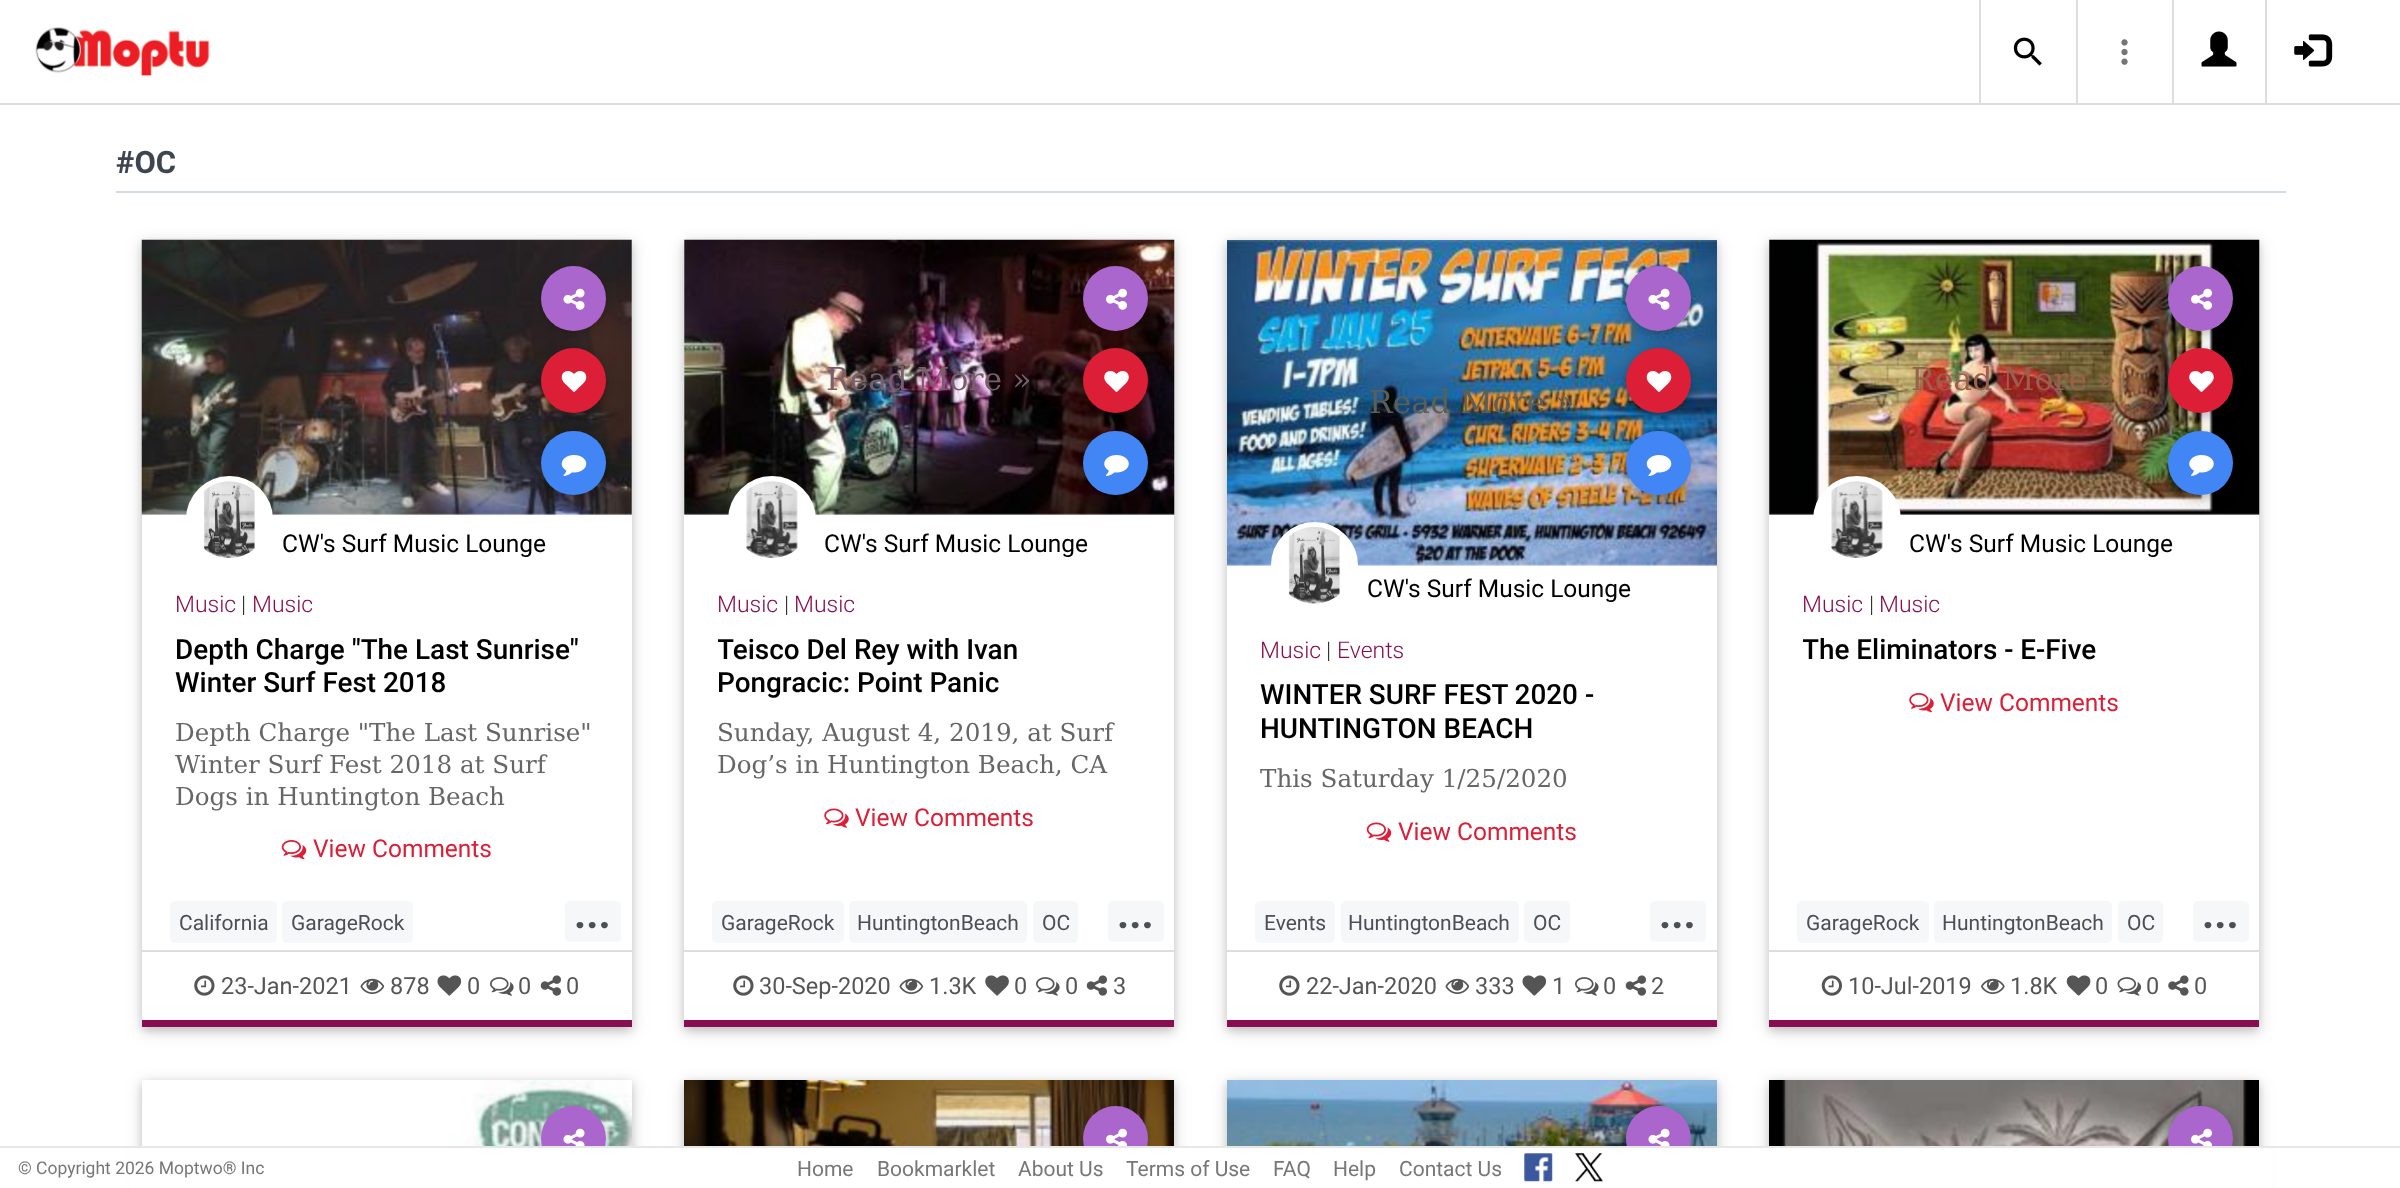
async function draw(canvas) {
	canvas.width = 2400;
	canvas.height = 1188;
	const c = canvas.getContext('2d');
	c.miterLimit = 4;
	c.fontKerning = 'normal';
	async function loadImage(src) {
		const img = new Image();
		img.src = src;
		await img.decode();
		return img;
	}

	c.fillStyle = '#fff';
	c.fillRect(0, 0, 2400, 1188);
	c.fillStyle = '#ddd';
	c.fillRect(0, 103, 2400, 2);
	c.drawImage(await loadImage('img1.png'), 35, 27, 175, 50);
	c.fillRect(1979, 0, 2, 103);
	c.drawImage(await loadImage('img2.png'), 2013, 37, 29, 29);
	c.fillRect(2076, 0, 2, 103);
	c.drawImage(await loadImage('img3.png'), 2121, 39, 7, 26);
	c.fillRect(2172, 0, 2, 103);
	c.drawImage(await loadImage('img4.png'), 2201, 31, 36, 36);
	c.fillRect(2265, 0, 2, 103);
	c.drawImage(await loadImage('img5.png'), 2294, 34, 39, 33);
	c.fillStyle = '#d3dbe4';
	c.fillRect(116, 191, 2170, 2);
	c.font = 'bold 31px Roboto';
	c.fillStyle = '#3e4551';
	c.fillText('#OC', 116, 173);
	c.fillStyle = '#0000001f';
	c.filter = 'blur(9px)';
	c.beginPath();
	c.rect(142, 243, 490, 788);
	c.fill();
	c.filter = 'none';
	c.fillStyle = '#00000029';
	c.filter = 'blur(4.5px)';
	c.beginPath();
	c.rect(142, 243, 490, 788);
	c.fill();
	c.filter = 'none';
	c.fillStyle = '#fff';
	c.fillRect(142, 240, 490, 780);
	c.fillStyle = '#880e4f';
	c.fillRect(142, 1020, 490, 7);
	c.drawImage(await loadImage('img6.png'), 141, 239, 491, 276);
	c.fillStyle = '#fff';
	c.beginPath();
	c.roundRect(188.5, 478.5, 82, 83, 41);
	c.fill();
	c.strokeStyle = '#fff';
	c.lineWidth = 5;
	c.stroke();
	c.drawImage(await loadImage('img7.png'), 203, 481, 52, 77);
	c.font = '24.5px Roboto';
	c.fillStyle = '#000';
	c.fillText('CW\'s Surf Music Lounge', 282, 552);
	c.fillStyle = '#00000029';
	c.filter = 'blur(4.5px)';
	c.beginPath();
	c.roundRect(541, 270, 65, 64, 32);
	c.fill();
	c.filter = 'none';
	c.fillStyle = '#a6c';
	c.beginPath();
	c.arc(573.5, 298.5, 32.5, 0, 2 * Math.PI);
	c.fill();
	c.drawImage(await loadImage('img8.png'), 563, 288, 22, 22);
	c.fillStyle = '#0000001f';
	c.filter = 'blur(9px)';
	c.beginPath();
	c.roundRect(541, 352, 65, 65, 32.5);
	c.fill();
	c.filter = 'none';
	c.fillStyle = '#00000029';
	c.filter = 'blur(4.5px)';
	c.beginPath();
	c.roundRect(541, 352, 65, 65, 32.5);
	c.fill();
	c.filter = 'none';
	c.fillStyle = '#dc1e36';
	c.beginPath();
	c.arc(573.5, 380.5, 32.5, 0, 2 * Math.PI);
	c.fill();
	c.drawImage(await loadImage('img9.png'), 561, 371, 26, 21);
	c.fillStyle = '#0000001f';
	c.filter = 'blur(9px)';
	c.beginPath();
	c.roundRect(541, 434, 65, 65, 32.5);
	c.fill();
	c.filter = 'none';
	c.fillStyle = '#00000029';
	c.filter = 'blur(4.5px)';
	c.beginPath();
	c.roundRect(541, 434, 65, 65, 32.5);
	c.fill();
	c.filter = 'none';
	c.fillStyle = '#4285f4';
	c.beginPath();
	c.roundRect(541, 431, 65, 64, 32);
	c.fill();
	c.drawImage(await loadImage('img10.png'), 561, 455, 26, 21);
	c.font = '300 23px Roboto';
	c.fillStyle = '#880e4f';
	c.fillText('Music', 175, 612);
	c.fillStyle = '#333';
	c.fillText('|', 241, 612);
	c.fillStyle = '#880e4f';
	c.fillText('Music', 252, 612);
	c.font = '500 27.9px Roboto';
	c.fillStyle = '#000';
	c.fillText('Depth Charge "The Last Sunrise"', 175, 659);
	c.fillText('Winter Surf Fest 2018', 175, 692);
	c.font = '24.6px DejaVu Serif';
	c.fillStyle = '#666';
	for (const [text, x, y] of [
		['Depth Charge "The Last Sunrise"', 175, 741],
		['Winter Surf Fest 2018 at Surf', 175, 773],
		['Dogs in Huntington Beach', 175, 805],
	]) {
		c.fillText(text, x, y);
	}
	c.drawImage(await loadImage('img11.png'), 281, 840, 26, 20);
	c.font = '24.5px Roboto';
	c.fillStyle = '#dc1e36';
	c.fillText('View Comments', 313, 857);
	c.fillStyle = '#f6f7f9';
	c.beginPath();
	c.roundRect(170, 901, 107, 42, 5);
	c.fill();
	c.font = '21px Roboto';
	c.fillStyle = '#4b4f56';
	c.fillText('California', 179, 930);
	c.fillStyle = '#f6f7f9';
	c.beginPath();
	c.roundRect(282, 901, 131, 42, 5);
	c.fill();
	c.fillStyle = '#4b4f56';
	c.fillText('GarageRock', 291, 930);
	c.fillStyle = '#f6f7f9';
	c.beginPath();
	c.roundRect(565, 901, 56, 41, 5);
	c.fill();
	c.font = 'bold 42px Roboto';
	c.fillStyle = '#4b4f56';
	c.fillText('...', 574, 928);
	c.fillStyle = '#ddd';
	c.fillRect(142, 950, 490, 2);
	c.drawImage(await loadImage('img12.png'), 194, 975, 21, 21);
	c.font = '23.5px Roboto';
	c.fillStyle = '#555';
	c.fillText('23-Jan-2021', 221, 994);
	c.drawImage(await loadImage('img13.png'), 360, 978, 25, 16);
	c.fillText('878', 390, 994);
	c.drawImage(await loadImage('img14.png'), 437, 975, 25, 21);
	c.fillText('0', 467, 994);
	c.drawImage(await loadImage('img15.png'), 490, 977, 24, 19);
	c.fillText('0', 518, 994);
	c.drawImage(await loadImage('img16.png'), 540, 975, 21, 21);
	c.fillText('0', 566, 994);
	c.fillStyle = '#0000001f';
	c.filter = 'blur(9px)';
	c.beginPath();
	c.rect(684, 243, 490, 788);
	c.fill();
	c.filter = 'none';
	c.fillStyle = '#00000029';
	c.filter = 'blur(4.5px)';
	c.beginPath();
	c.rect(684, 243, 490, 788);
	c.fill();
	c.filter = 'none';
	c.fillStyle = '#fff';
	c.fillRect(684, 240, 490, 780);
	c.fillStyle = '#880e4f';
	c.fillRect(684, 1020, 490, 7);
	c.drawImage(await loadImage('img17.png'), 684, 239, 491, 276);
	c.font = '31.5px DejaVu Serif';
	c.fillStyle = '#795f6d';
	c.fillText('Read More »', 826, 390);
	c.fillStyle = '#0000001f';
	c.filter = 'blur(9px)';
	c.beginPath();
	c.roundRect(1083, 270, 65, 64, 32);
	c.fill();
	c.filter = 'none';
	c.fillStyle = '#00000029';
	c.filter = 'blur(4.5px)';
	c.beginPath();
	c.roundRect(1083, 270, 65, 64, 32);
	c.fill();
	c.filter = 'none';
	c.fillStyle = '#a6c';
	c.beginPath();
	c.arc(1115.5, 298.5, 32.5, 0, 2 * Math.PI);
	c.fill();
	c.drawImage(await loadImage('img18.png'), 1106, 288, 21, 22);
	c.fillStyle = '#00000029';
	c.filter = 'blur(4.5px)';
	c.beginPath();
	c.roundRect(1083, 352, 65, 65, 32.5);
	c.fill();
	c.filter = 'none';
	c.fillStyle = '#dc1e36';
	c.beginPath();
	c.arc(1115.5, 380.5, 32.5, 0, 2 * Math.PI);
	c.fill();
	c.drawImage(await loadImage('img19.png'), 1104, 371, 25, 21);
	c.fillStyle = '#4285f4';
	c.beginPath();
	c.roundRect(1083, 431, 65, 64, 32);
	c.fill();
	c.drawImage(await loadImage('img20.png'), 1104, 455, 25, 21);
	c.fillStyle = '#fff';
	c.beginPath();
	c.arc(772, 520, 41.5, 0, 2 * Math.PI);
	c.fill();
	c.stroke();
	c.drawImage(await loadImage('img21.png'), 746, 481, 52, 77);
	c.font = '24.5px Roboto';
	c.fillStyle = '#000';
	c.fillText('CW\'s Surf Music Lounge', 824, 552);
	c.font = '300 23px Roboto';
	c.fillStyle = '#880e4f';
	c.fillText('Music', 717, 612);
	c.fillStyle = '#333';
	c.fillText('|', 784, 612);
	c.fillStyle = '#880e4f';
	c.fillText('Music', 794, 612);
	c.save();
	c.beginPath();
	c.rect(718, 632, 423, 68);
	c.clip();
	c.font = '500 27.9px Roboto';
	c.fillStyle = '#000';
	c.fillText('Teisco Del Rey with Ivan', 717, 659);
	c.restore();
	c.font = '500 27.9px Roboto';
	c.fillStyle = '#000';
	c.fillText('Pongracic: Point Panic', 717, 692);
	c.font = '24.6px DejaVu Serif';
	c.fillStyle = '#666';
	c.fillText('Sunday, August 4, 2019, at Surf', 717, 741);
	c.fillText('Dog’s in Huntington Beach, CA', 717, 773);
	c.drawImage(await loadImage('img22.png'), 824, 808, 25, 20);
	c.font = '24.5px Roboto';
	c.fillStyle = '#dc1e36';
	c.fillText('View Comments', 855, 826);
	c.fillStyle = '#f6f7f9';
	c.beginPath();
	c.roundRect(712, 901, 132, 42, 5);
	c.fill();
	c.font = '21px Roboto';
	c.fillStyle = '#4b4f56';
	c.fillText('GarageRock', 721, 930);
	c.fillStyle = '#f6f7f9';
	c.beginPath();
	c.roundRect(849, 901, 178, 42, 5);
	c.fill();
	c.fillStyle = '#4b4f56';
	c.fillText('HuntingtonBeach', 857, 930);
	c.fillStyle = '#f6f7f9';
	c.beginPath();
	c.roundRect(1033, 901, 45, 42, 5);
	c.fill();
	c.fillStyle = '#4b4f56';
	c.fillText('OC', 1042, 930);
	c.fillStyle = '#f6f7f9';
	c.beginPath();
	c.roundRect(1108, 901, 56, 41, 5);
	c.fill();
	c.font = 'bold 42px Roboto';
	c.fillStyle = '#4b4f56';
	c.fillText('...', 1117, 928);
	c.fillStyle = '#ddd';
	c.fillRect(684, 950, 490, 2);
	c.drawImage(await loadImage('img12.png'), 733, 975, 21, 21);
	c.font = '23.5px Roboto';
	c.fillStyle = '#555';
	c.fillText('30-Sep-2020', 759, 994);
	c.drawImage(await loadImage('img13.png'), 899, 978, 25, 16);
	c.fillText('1.3K', 929, 994);
	c.drawImage(await loadImage('img23.png'), 985, 975, 24, 21);
	c.fillText('0', 1014, 994);
	c.drawImage(await loadImage('img15.png'), 1036, 977, 24, 19);
	c.fillText('0', 1065, 994);
	c.drawImage(await loadImage('img16.png'), 1086, 975, 21, 21);
	c.fillText('3', 1113, 994);
	c.fillStyle = '#0000001f';
	c.filter = 'blur(9px)';
	c.beginPath();
	c.rect(1227, 243, 490, 788);
	c.fill();
	c.filter = 'none';
	c.fillStyle = '#00000029';
	c.filter = 'blur(4.5px)';
	c.beginPath();
	c.rect(1227, 243, 490, 788);
	c.fill();
	c.filter = 'none';
	c.fillStyle = '#fff';
	c.fillRect(1227, 564, 490, 456);
	c.fillStyle = '#880e4f';
	c.fillRect(1227, 1020, 490, 7);
	c.drawImage(await loadImage('img24.png'), 1227, 240, 490, 326);
	c.font = '31.5px DejaVu Serif';
	c.fillStyle = '#5c5e58';
	c.fillText('Read More »', 1369, 413);
	c.fillStyle = '#0000001f';
	c.filter = 'blur(9px)';
	c.beginPath();
	c.roundRect(1626, 270, 65, 64, 32);
	c.fill();
	c.filter = 'none';
	c.fillStyle = '#00000029';
	c.filter = 'blur(4.5px)';
	c.beginPath();
	c.roundRect(1626, 270, 65, 64, 32);
	c.fill();
	c.filter = 'none';
	c.fillStyle = '#a6c';
	c.beginPath();
	c.arc(1658.5, 298.5, 32.5, 0, 2 * Math.PI);
	c.fill();
	c.drawImage(await loadImage('img8.png'), 1648, 288, 22, 22);
	c.fillStyle = '#0000001f';
	c.filter = 'blur(9px)';
	c.beginPath();
	c.roundRect(1626, 352, 65, 65, 32.5);
	c.fill();
	c.filter = 'none';
	c.fillStyle = '#00000029';
	c.filter = 'blur(4.5px)';
	c.beginPath();
	c.roundRect(1626, 352, 65, 65, 32.5);
	c.fill();
	c.filter = 'none';
	c.fillStyle = '#dc1e36';
	c.beginPath();
	c.arc(1658.5, 380.5, 32.5, 0, 2 * Math.PI);
	c.fill();
	c.drawImage(await loadImage('img9.png'), 1646, 371, 26, 21);
	c.fillStyle = '#0000001f';
	c.filter = 'blur(9px)';
	c.beginPath();
	c.roundRect(1626, 434, 65, 65, 32.5);
	c.fill();
	c.filter = 'none';
	c.fillStyle = '#00000029';
	c.filter = 'blur(4.5px)';
	c.beginPath();
	c.roundRect(1626, 434, 65, 65, 32.5);
	c.fill();
	c.filter = 'none';
	c.fillStyle = '#4285f4';
	c.beginPath();
	c.roundRect(1626, 431, 65, 64, 32);
	c.fill();
	c.drawImage(await loadImage('img10.png'), 1646, 455, 26, 21);
	c.fillStyle = '#fff';
	c.beginPath();
	c.arc(1314.5, 565.5, 41, 0, 2 * Math.PI);
	c.fill();
	c.stroke();
	c.drawImage(await loadImage('img25.png'), 1288, 527, 52, 77);
	c.font = '24.5px Roboto';
	c.fillStyle = '#000';
	c.fillText('CW\'s Surf Music Lounge', 1367, 597);
	c.font = '300 23px Roboto';
	c.fillStyle = '#880e4f';
	c.fillText('Music', 1260, 658);
	c.fillStyle = '#333';
	c.fillText('|', 1326, 658);
	c.fillStyle = '#880e4f';
	c.fillText('Events', 1337, 658);
	c.font = '500 27.9px Roboto';
	c.fillStyle = '#000';
	c.fillText('WINTER SURF FEST 2020 -', 1260, 704);
	c.fillText('HUNTINGTON BEACH', 1260, 738);
	c.save();
	c.beginPath();
	c.rect(1260, 763, 424, 32);
	c.clip();
	c.font = '24.6px DejaVu Serif';
	c.fillStyle = '#666';
	c.fillText('This Saturday 1/25/2020', 1260, 787);
	c.restore();
	c.drawImage(await loadImage('img26.png'), 1366, 822, 26, 20);
	c.font = '24.5px Roboto';
	c.fillStyle = '#dc1e36';
	c.fillText('View Comments', 1398, 840);
	c.fillStyle = '#f6f7f9';
	c.beginPath();
	c.roundRect(1255, 901, 80, 42, 5);
	c.fill();
	c.font = '21px Roboto';
	c.fillStyle = '#4b4f56';
	c.fillText('Events', 1264, 930);
	c.fillStyle = '#f6f7f9';
	c.beginPath();
	c.roundRect(1341, 901, 178, 42, 5);
	c.fill();
	c.fillStyle = '#4b4f56';
	c.fillText('HuntingtonBeach', 1348, 930);
	c.fillStyle = '#f6f7f9';
	c.beginPath();
	c.roundRect(1524, 901, 46, 42, 5);
	c.fill();
	c.fillStyle = '#4b4f56';
	c.fillText('OC', 1533, 930);
	c.fillStyle = '#f6f7f9';
	c.beginPath();
	c.roundRect(1650, 901, 56, 41, 5);
	c.fill();
	c.font = 'bold 42px Roboto';
	c.fillStyle = '#4b4f56';
	c.fillText('...', 1659, 928);
	c.fillStyle = '#ddd';
	c.fillRect(1227, 950, 490, 2);
	c.drawImage(await loadImage('img12.png'), 1279, 975, 21, 21);
	c.font = '23.5px Roboto';
	c.fillStyle = '#555';
	c.fillText('22-Jan-2020', 1306, 994);
	c.drawImage(await loadImage('img13.png'), 1445, 978, 25, 16);
	c.fillText('333', 1475, 994);
	c.drawImage(await loadImage('img27.png'), 1522, 975, 25, 21);
	c.fillText('1', 1552, 994);
	c.drawImage(await loadImage('img15.png'), 1575, 977, 24, 19);
	c.fillText('0', 1603, 994);
	c.drawImage(await loadImage('img16.png'), 1625, 975, 21, 21);
	c.fillText('2', 1651, 994);
	c.fillStyle = '#0000001f';
	c.filter = 'blur(9px)';
	c.beginPath();
	c.rect(1769, 243, 490, 788);
	c.fill();
	c.filter = 'none';
	c.fillStyle = '#00000029';
	c.filter = 'blur(4.5px)';
	c.beginPath();
	c.rect(1769, 243, 490, 788);
	c.fill();
	c.filter = 'none';
	c.fillStyle = '#fff';
	c.fillRect(1769, 240, 490, 780);
	c.fillStyle = '#880e4f';
	c.fillRect(1769, 1020, 490, 7);
	c.drawImage(await loadImage('img28.png'), 1769, 239, 491, 276);
	c.font = '31.5px DejaVu Serif';
	c.fillStyle = '#9c5f49';
	c.fillText('Read More »', 1911, 390);
	c.fillStyle = '#0000001f';
	c.filter = 'blur(9px)';
	c.beginPath();
	c.roundRect(2168, 270, 65, 64, 32);
	c.fill();
	c.filter = 'none';
	c.fillStyle = '#00000029';
	c.filter = 'blur(4.5px)';
	c.beginPath();
	c.roundRect(2168, 270, 65, 64, 32);
	c.fill();
	c.filter = 'none';
	c.fillStyle = '#a6c';
	c.beginPath();
	c.arc(2200.5, 298.5, 32.5, 0, 2 * Math.PI);
	c.fill();
	c.drawImage(await loadImage('img18.png'), 2191, 288, 21, 22);
	c.fillStyle = '#0000001f';
	c.filter = 'blur(9px)';
	c.beginPath();
	c.roundRect(2168, 352, 65, 65, 32.5);
	c.fill();
	c.filter = 'none';
	c.fillStyle = '#00000029';
	c.filter = 'blur(4.5px)';
	c.beginPath();
	c.roundRect(2168, 352, 65, 65, 32.5);
	c.fill();
	c.filter = 'none';
	c.fillStyle = '#dc1e36';
	c.beginPath();
	c.arc(2200.5, 380.5, 32.5, 0, 2 * Math.PI);
	c.fill();
	c.drawImage(await loadImage('img19.png'), 2189, 371, 25, 21);
	c.fillStyle = '#0000001f';
	c.filter = 'blur(9px)';
	c.beginPath();
	c.roundRect(2168, 434, 65, 65, 32.5);
	c.fill();
	c.filter = 'none';
	c.fillStyle = '#00000029';
	c.filter = 'blur(4.5px)';
	c.beginPath();
	c.roundRect(2168, 434, 65, 65, 32.5);
	c.fill();
	c.filter = 'none';
	c.fillStyle = '#4285f4';
	c.beginPath();
	c.roundRect(2168, 431, 65, 64, 32);
	c.fill();
	c.drawImage(await loadImage('img20.png'), 2189, 455, 25, 21);
	c.fillStyle = '#fff';
	c.beginPath();
	c.arc(1857, 520, 41.5, 0, 2 * Math.PI);
	c.fill();
	c.stroke();
	c.drawImage(await loadImage('img29.png'), 1831, 481, 52, 77);
	c.font = '24.5px Roboto';
	c.fillStyle = '#000';
	c.fillText('CW\'s Surf Music Lounge', 1909, 552);
	c.font = '300 23px Roboto';
	c.fillStyle = '#880e4f';
	c.fillText('Music', 1802, 612);
	c.fillStyle = '#333';
	c.fillText('|', 1869, 612);
	c.fillStyle = '#880e4f';
	c.fillText('Music', 1879, 612);
	c.save();
	c.beginPath();
	c.rect(1803, 632, 423, 33);
	c.clip();
	c.font = '500 27.9px Roboto';
	c.fillStyle = '#000';
	c.fillText('The Eliminators - E-Five', 1802, 659);
	c.restore();
	c.drawImage(await loadImage('img30.png'), 1909, 693, 25, 20);
	c.font = '24.5px Roboto';
	c.fillStyle = '#dc1e36';
	c.fillText('View Comments', 1940, 711);
	c.fillStyle = '#f6f7f9';
	c.beginPath();
	c.roundRect(1797, 901, 132, 42, 5);
	c.fill();
	c.font = '21px Roboto';
	c.fillStyle = '#4b4f56';
	c.fillText('GarageRock', 1806, 930);
	c.fillStyle = '#f6f7f9';
	c.beginPath();
	c.roundRect(1934, 901, 178, 42, 5);
	c.fill();
	c.fillStyle = '#4b4f56';
	c.fillText('HuntingtonBeach', 1942, 930);
	c.fillStyle = '#f6f7f9';
	c.beginPath();
	c.roundRect(2118, 901, 45, 42, 5);
	c.fill();
	c.fillStyle = '#4b4f56';
	c.fillText('OC', 2127, 930);
	c.fillStyle = '#f6f7f9';
	c.beginPath();
	c.roundRect(2193, 901, 56, 41, 5);
	c.fill();
	c.font = 'bold 42px Roboto';
	c.fillStyle = '#4b4f56';
	c.fillText('...', 2202, 928);
	c.fillStyle = '#ddd';
	c.fillRect(1769, 950, 490, 2);
	c.drawImage(await loadImage('img31.png'), 1821, 975, 21, 21);
	c.font = '23.5px Roboto';
	c.fillStyle = '#555';
	c.fillText('10-Jul-2019', 1848, 994);
	c.drawImage(await loadImage('img32.png'), 1981, 978, 24, 16);
	c.fillText('1.8K', 2010, 994);
	c.drawImage(await loadImage('img33.png'), 2066, 975, 25, 21);
	c.fillText('0', 2095, 994);
	c.drawImage(await loadImage('img34.png'), 2117, 977, 25, 19);
	c.fillText('0', 2146, 994);
	c.drawImage(await loadImage('img35.png'), 2168, 975, 21, 21);
	c.fillText('0', 2194, 994);
	c.fillStyle = '#0000001f';
	c.filter = 'blur(9px)';
	c.beginPath();
	c.rect(142, 1083, 490, 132);
	c.fill();
	c.filter = 'none';
	c.fillStyle = '#00000029';
	c.filter = 'blur(4.5px)';
	c.beginPath();
	c.rect(142, 1083, 490, 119);
	c.fill();
	c.filter = 'none';
	c.fillStyle = '#fff';
	c.fillRect(142, 1080, 224, 66);
	c.drawImage(await loadImage('img36.png'), 366, 1080, 266, 66);
	c.fillStyle = '#0000001f';
	c.filter = 'blur(9px)';
	c.beginPath();
	c.roundRect(541, 1110, 65, 64, 32);
	c.fill();
	c.filter = 'none';
	c.fillStyle = '#00000029';
	c.filter = 'blur(4.5px)';
	c.beginPath();
	c.roundRect(541, 1110, 65, 64, 32);
	c.fill();
	c.filter = 'none';
	c.fillStyle = '#a6c';
	c.beginPath();
	c.arc(573.5, 1138.5, 32.5, 0, 2 * Math.PI);
	c.fill();
	c.drawImage(await loadImage('img37.png'), 563, 1128, 22, 18);
	c.fillStyle = '#0000001f';
	c.filter = 'blur(9px)';
	c.beginPath();
	c.rect(684, 1083, 490, 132);
	c.fill();
	c.filter = 'none';
	c.fillStyle = '#00000029';
	c.filter = 'blur(4.5px)';
	c.beginPath();
	c.rect(684, 1083, 490, 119);
	c.fill();
	c.filter = 'none';
	c.drawImage(await loadImage('img38.png'), 684, 1080, 490, 66);
	c.fillStyle = '#0000001f';
	c.filter = 'blur(9px)';
	c.beginPath();
	c.roundRect(1083, 1110, 65, 64, 32);
	c.fill();
	c.filter = 'none';
	c.fillStyle = '#00000029';
	c.filter = 'blur(4.5px)';
	c.beginPath();
	c.roundRect(1083, 1110, 65, 64, 32);
	c.fill();
	c.filter = 'none';
	c.fillStyle = '#a6c';
	c.beginPath();
	c.arc(1115.5, 1138.5, 32.5, 0, 2 * Math.PI);
	c.fill();
	c.drawImage(await loadImage('img39.png'), 1106, 1128, 21, 18);
	c.fillStyle = '#0000001f';
	c.filter = 'blur(9px)';
	c.beginPath();
	c.rect(1227, 1083, 490, 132);
	c.fill();
	c.filter = 'none';
	c.fillStyle = '#00000029';
	c.filter = 'blur(4.5px)';
	c.beginPath();
	c.rect(1227, 1083, 490, 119);
	c.fill();
	c.filter = 'none';
	c.drawImage(await loadImage('img40.png'), 1227, 1080, 490, 66);
	c.fillStyle = '#0000001f';
	c.filter = 'blur(9px)';
	c.beginPath();
	c.roundRect(1626, 1110, 65, 64, 32);
	c.fill();
	c.filter = 'none';
	c.fillStyle = '#00000029';
	c.filter = 'blur(4.5px)';
	c.beginPath();
	c.roundRect(1626, 1110, 65, 64, 32);
	c.fill();
	c.filter = 'none';
	c.fillStyle = '#a6c';
	c.beginPath();
	c.arc(1658.5, 1138.5, 32.5, 0, 2 * Math.PI);
	c.fill();
	c.drawImage(await loadImage('img37.png'), 1648, 1128, 22, 18);
	c.fillStyle = '#0000001f';
	c.filter = 'blur(9px)';
	c.beginPath();
	c.rect(1769, 1083, 490, 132);
	c.fill();
	c.filter = 'none';
	c.fillStyle = '#00000029';
	c.filter = 'blur(4.5px)';
	c.beginPath();
	c.rect(1769, 1083, 490, 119);
	c.fill();
	c.filter = 'none';
	c.drawImage(await loadImage('img41.png'), 1769, 1080, 490, 66);
	c.fillStyle = '#0000001f';
	c.filter = 'blur(9px)';
	c.beginPath();
	c.roundRect(2168, 1110, 65, 64, 32);
	c.fill();
	c.filter = 'none';
	c.fillStyle = '#00000029';
	c.filter = 'blur(4.5px)';
	c.beginPath();
	c.roundRect(2168, 1110, 65, 64, 32);
	c.fill();
	c.filter = 'none';
	c.fillStyle = '#a6c';
	c.beginPath();
	c.arc(2200.5, 1138.5, 32.5, 0, 2 * Math.PI);
	c.fill();
	c.drawImage(await loadImage('img39.png'), 2191, 1128, 21, 18);
	c.fillStyle = '#fff';
	c.fillRect(129, 1148, 2143, 40);
	c.fillStyle = '#e7e7e7';
	c.fillRect(0, 1146, 2400, 2);
	c.font = '17.5px Roboto';
	c.fillStyle = '#777';
	c.fillText('© Copyright 2026 Moptwo® Inc', 18, 1174);
	c.font = '21px Roboto';
	for (const [text, x, y] of [
		['Home', 797, 1176],
		['Bookmarklet', 877, 1176],
		['About Us', 1018, 1176],
		['Terms of Use', 1126, 1176],
		['FAQ', 1273, 1176],
		['Help', 1333, 1176],
		['Contact Us', 1399, 1176],
	]) {
		c.fillText(text, x, y);
	}
	c.drawImage(await loadImage('img42.png'), 1524, 1153, 29, 29);
	c.drawImage(await loadImage('img43.png'), 1575, 1153, 28, 29);
}

draw(document.querySelector('canvas'));
